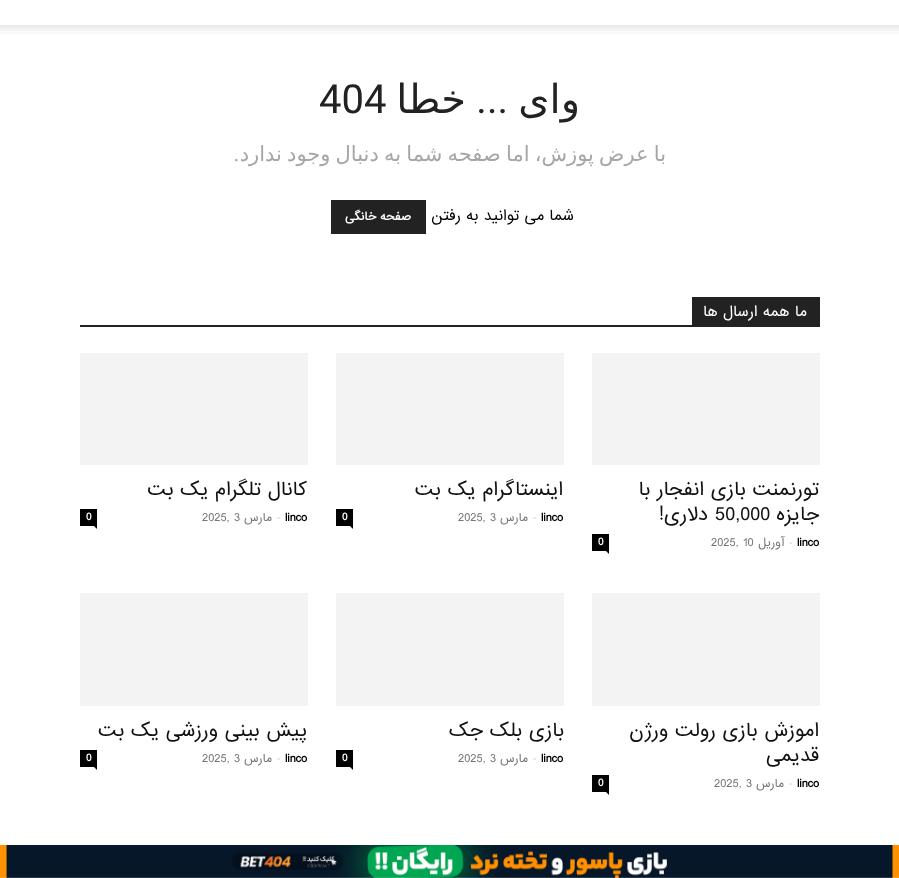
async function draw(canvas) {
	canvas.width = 899;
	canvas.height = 878;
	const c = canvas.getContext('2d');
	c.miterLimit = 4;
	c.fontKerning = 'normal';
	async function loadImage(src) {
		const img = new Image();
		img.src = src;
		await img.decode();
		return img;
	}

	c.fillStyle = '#fff';
	c.fillRect(0, 0, 899, 878);
	c.drawImage(await loadImage('img1.png'), 0, 25, 899, 9);
	c.direction = 'rtl';
	c.font = '40px DejaVu Sans';
	c.fillStyle = '#222';
	c.fillText('وای', 580, 113);
	c.font = '40px Roboto';
	c.fillText('...', 508, 113);
	c.font = '40px DejaVu Sans';
	c.fillText('خطا', 466, 113);
	c.direction = 'ltr';
	c.font = '40px Roboto';
	c.fillText('404', 319, 113);
	c.wordSpacing = '-1.5px';
	c.direction = 'rtl';
	c.font = '21px DejaVu Sans';
	c.fillStyle = '#a6a6a6';
	c.fillText('با عرض پوزش، اما صفحه شما به دنبال وجود ندارد', 666, 161);
	c.wordSpacing = '0px';
	c.font = '21px Liberation Serif';
	c.fillText('.', 239, 161);
	c.font = '14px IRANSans';
	c.fillStyle = '#000';
	c.fillText('شما می توانید به رفتن', 574, 220);
	c.fillStyle = '#222';
	c.fillRect(331, 200, 95, 34);
	c.font = 'bold 11px IRANSans';
	c.fillStyle = '#fff';
	c.fillText('صفحه خانگی', 411, 220);
	c.fillStyle = '#222';
	c.fillRect(80, 325, 740, 2);
	c.fillRect(692, 297, 128, 28);
	c.font = '14px IRANSans';
	c.fillStyle = '#fff';
	c.fillText('ما همه ارسال ها', 807, 316);
	c.fillStyle = '#f3f3f3';
	c.fillRect(592, 353, 228, 112);
	c.font = '18px IRANSans';
	c.fillStyle = '#111';
	c.fillText('تورنمنت بازی انفجار با', 819, 495);
	c.fillText('جایزه', 819, 520);
	c.direction = 'ltr';
	c.fillText('50,000', 715, 520);
	c.direction = 'rtl';
	c.fillText('دلاری!', 708, 520);
	c.direction = 'ltr';
	c.font = 'bold 11px IRANSans';
	c.fillStyle = '#000';
	c.fillText('linco', 797, 546);
	c.font = '11px Open Sans';
	c.fillStyle = '#ccc';
	c.fillText('-', 789, 546);
	c.direction = 'rtl';
	c.font = '11px IRANSans';
	c.fillStyle = '#767676';
	c.fillText('آوریل', 784, 546);
	c.direction = 'ltr';
	c.fillText('2025, 10', 711, 546);
	c.fillStyle = '#000';
	c.fillRect(592, 534, 17, 17);
	c.font = 'bold 10px IRANSans';
	c.fillStyle = '#fff';
	c.fillText('0', 598, 545);
	c.fillStyle = '#000';
	c.beginPath();
	c.moveTo(606, 551);
	c.lineTo(609, 551);
	c.lineTo(609, 554);
	c.closePath();
	c.fill();
	c.fillStyle = '#f3f3f3';
	c.fillRect(336, 353, 228, 112);
	c.direction = 'rtl';
	c.font = '18px IRANSans';
	c.fillStyle = '#111';
	c.fillText('اینستاگرام یک بت', 563, 495);
	c.direction = 'ltr';
	c.font = 'bold 11px IRANSans';
	c.fillStyle = '#000';
	c.fillText('linco', 541, 521);
	c.font = '11px Open Sans';
	c.fillStyle = '#ccc';
	c.fillText('-', 533, 521);
	c.direction = 'rtl';
	c.font = '11px IRANSans';
	c.fillStyle = '#767676';
	c.fillText('مارس', 528, 521);
	c.direction = 'ltr';
	c.fillText('2025, 3', 458, 521);
	c.fillStyle = '#000';
	c.fillRect(336, 509, 17, 17);
	c.font = 'bold 10px IRANSans';
	c.fillStyle = '#fff';
	c.fillText('0', 342, 520);
	c.fillStyle = '#000';
	c.beginPath();
	c.moveTo(350, 526);
	c.lineTo(353, 526);
	c.lineTo(353, 529);
	c.closePath();
	c.fill();
	c.fillStyle = '#f3f3f3';
	c.fillRect(80, 353, 228, 112);
	c.direction = 'rtl';
	c.font = '18px IRANSans';
	c.fillStyle = '#111';
	c.fillText('کانال تلگرام یک بت', 307, 495);
	c.direction = 'ltr';
	c.font = 'bold 11px IRANSans';
	c.fillStyle = '#000';
	c.fillText('linco', 285, 521);
	c.font = '11px Open Sans';
	c.fillStyle = '#ccc';
	c.fillText('-', 277, 521);
	c.direction = 'rtl';
	c.font = '11px IRANSans';
	c.fillStyle = '#767676';
	c.fillText('مارس', 272, 521);
	c.direction = 'ltr';
	c.fillText('2025, 3', 202, 521);
	c.fillStyle = '#000';
	c.fillRect(80, 509, 17, 17);
	c.font = 'bold 10px IRANSans';
	c.fillStyle = '#fff';
	c.fillText('0', 86, 520);
	c.fillStyle = '#000';
	c.beginPath();
	c.moveTo(94, 526);
	c.lineTo(97, 526);
	c.lineTo(97, 529);
	c.closePath();
	c.fill();
	c.fillStyle = '#f3f3f3';
	c.fillRect(592, 593, 228, 113);
	c.direction = 'rtl';
	c.font = '18px IRANSans';
	c.fillStyle = '#111';
	c.fillText('اموزش بازی رولت ورژن', 819, 736);
	c.fillText('قدیمی', 819, 761);
	c.direction = 'ltr';
	c.font = 'bold 11px IRANSans';
	c.fillStyle = '#000';
	c.fillText('linco', 797, 787);
	c.font = '11px Open Sans';
	c.fillStyle = '#ccc';
	c.fillText('-', 789, 787);
	c.direction = 'rtl';
	c.font = '11px IRANSans';
	c.fillStyle = '#767676';
	c.fillText('مارس', 784, 787);
	c.direction = 'ltr';
	c.fillText('2025, 3', 714, 787);
	c.fillStyle = '#000';
	c.fillRect(592, 775, 17, 17);
	c.font = 'bold 10px IRANSans';
	c.fillStyle = '#fff';
	c.fillText('0', 598, 786);
	c.fillStyle = '#000';
	c.beginPath();
	c.moveTo(606, 792);
	c.lineTo(609, 792);
	c.lineTo(609, 795);
	c.closePath();
	c.fill();
	c.fillStyle = '#f3f3f3';
	c.fillRect(336, 593, 228, 113);
	c.direction = 'rtl';
	c.font = '18px IRANSans';
	c.fillStyle = '#111';
	c.fillText('بازی بلک جک', 564, 736);
	c.direction = 'ltr';
	c.font = 'bold 11px IRANSans';
	c.fillStyle = '#000';
	c.fillText('linco', 541, 762);
	c.font = '11px Open Sans';
	c.fillStyle = '#ccc';
	c.fillText('-', 533, 762);
	c.direction = 'rtl';
	c.font = '11px IRANSans';
	c.fillStyle = '#767676';
	c.fillText('مارس', 528, 762);
	c.direction = 'ltr';
	c.fillText('2025, 3', 458, 762);
	c.fillStyle = '#000';
	c.fillRect(336, 750, 17, 17);
	c.font = 'bold 10px IRANSans';
	c.fillStyle = '#fff';
	c.fillText('0', 342, 761);
	c.fillStyle = '#000';
	c.beginPath();
	c.moveTo(350, 767);
	c.lineTo(353, 767);
	c.lineTo(353, 770);
	c.closePath();
	c.fill();
	c.fillStyle = '#f3f3f3';
	c.fillRect(80, 593, 228, 113);
	c.direction = 'rtl';
	c.font = '18px IRANSans';
	c.fillStyle = '#111';
	c.fillText('پیش بینی ورزشی یک بت', 307, 736);
	c.direction = 'ltr';
	c.font = 'bold 11px IRANSans';
	c.fillStyle = '#000';
	c.fillText('linco', 285, 762);
	c.font = '11px Open Sans';
	c.fillStyle = '#ccc';
	c.fillText('-', 277, 762);
	c.direction = 'rtl';
	c.font = '11px IRANSans';
	c.fillStyle = '#767676';
	c.fillText('مارس', 272, 762);
	c.direction = 'ltr';
	c.fillText('2025, 3', 202, 762);
	c.fillStyle = '#000';
	c.fillRect(80, 750, 17, 17);
	c.font = 'bold 10px IRANSans';
	c.fillStyle = '#fff';
	c.fillText('0', 86, 761);
	c.fillStyle = '#000';
	c.beginPath();
	c.moveTo(94, 767);
	c.lineTo(97, 767);
	c.lineTo(97, 770);
	c.closePath();
	c.fill();
	c.drawImage(await loadImage('img2.png'), 0, 845, 899, 33);
}

draw(document.querySelector('canvas'));
